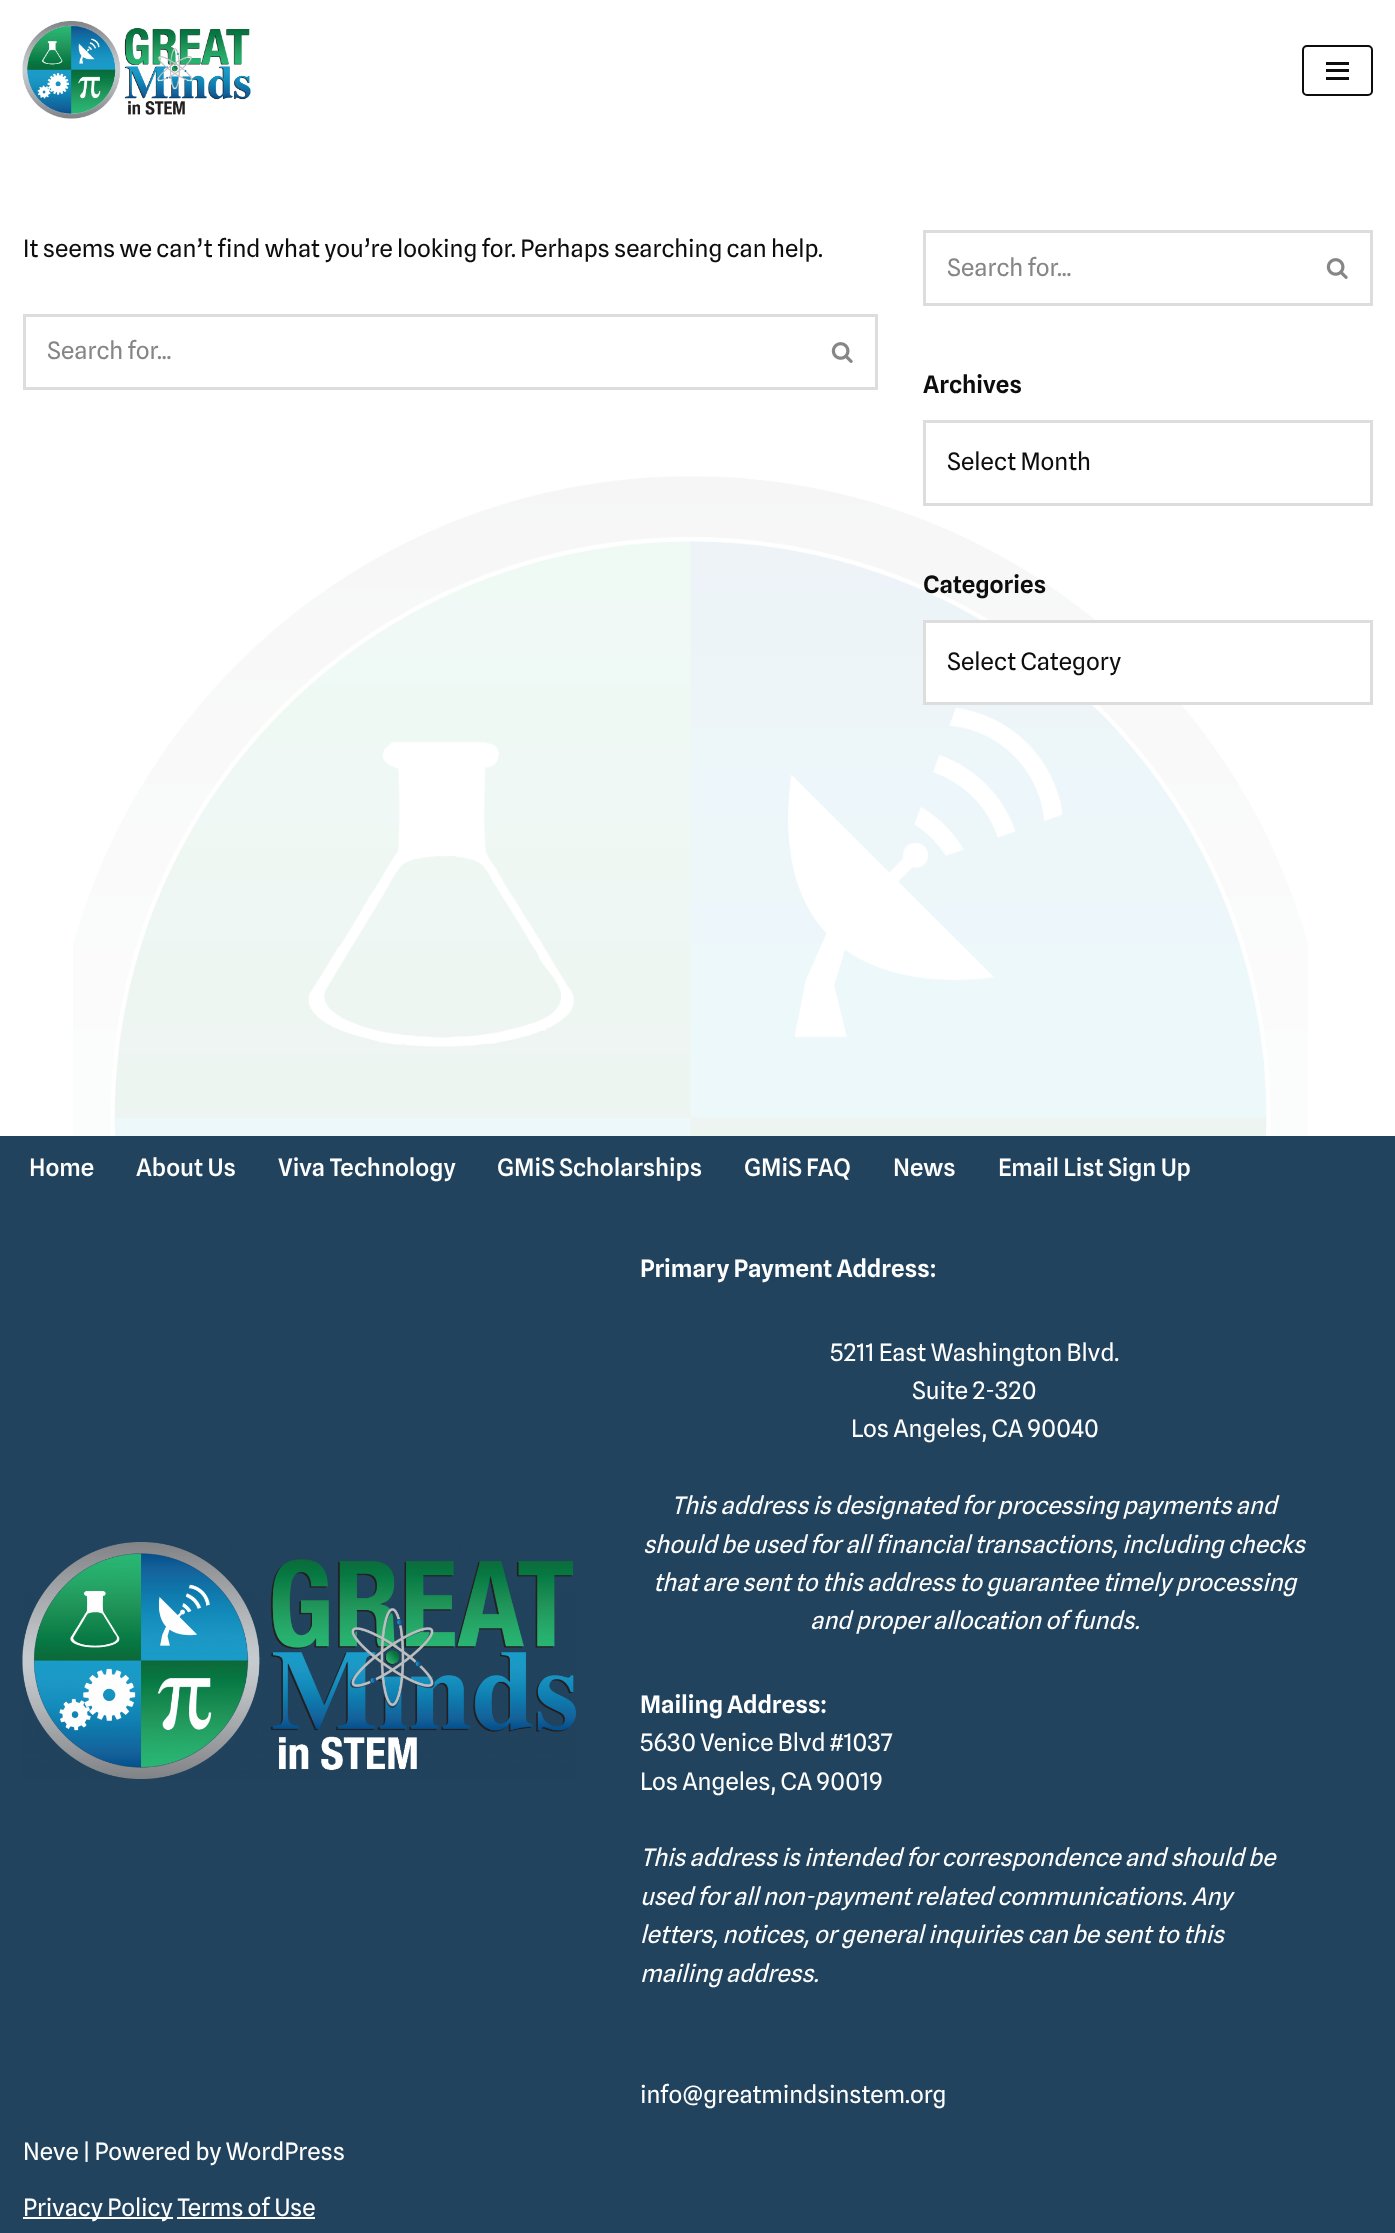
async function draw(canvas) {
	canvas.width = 1395;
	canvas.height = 2233;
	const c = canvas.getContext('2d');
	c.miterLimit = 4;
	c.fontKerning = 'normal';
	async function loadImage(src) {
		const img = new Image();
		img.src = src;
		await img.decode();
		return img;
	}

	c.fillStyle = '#fff';
	c.fillRect(0, 0, 1395, 2233);
	c.drawImage(await loadImage('img1.png'), 73, 476, 1235, 660);
	c.drawImage(await loadImage('img2.png'), 22, 21, 229, 98);
	c.beginPath();
	c.roundRect(1303, 46, 69, 49, 4);
	c.strokeStyle = '#0e0d0d';
	c.lineWidth = 2;
	c.stroke();
	for (const [x, y, w, h, color] of [
		[1326, 62, 23, 3, '#0e0d0d'],
		[1326, 69, 23, 3, '#0e0d0d'],
		[1326, 77, 23, 3, '#0e0d0d'],
	]) {
		c.fillStyle = color;
		c.fillRect(x, y, w, h);
	}
	c.font = '24px Spline Sans';
	c.fillText('It seems we can’t find what you’re looking for. Perhaps searching can help.', 23, 257);
	for (const [x, y, w, h, color] of [
		[23, 314, 855, 3, '#ddd'],
		[23, 387, 787, 3, '#ddd'],
		[23, 314, 3, 76, '#ddd'],
	]) {
		c.fillStyle = color;
		c.fillRect(x, y, w, h);
	}
	c.fillStyle = '#878686';
	c.fillText('Search for...', 47, 359);
	c.fillStyle = '#ddd';
	c.fillRect(875, 314, 3, 76);
	c.fillRect(810, 387, 68, 3);
	c.drawImage(await loadImage('img3.png'), 831, 342, 22, 21);
	for (const [x, y, w, h, color] of [
		[923, 230, 450, 3, '#ddd'],
		[923, 303, 382, 3, '#ddd'],
		[923, 230, 3, 76, '#ddd'],
	]) {
		c.fillStyle = color;
		c.fillRect(x, y, w, h);
	}
	c.fillStyle = '#878686';
	c.fillText('Search for...', 947, 276);
	c.fillStyle = '#ddd';
	c.fillRect(1370, 230, 3, 76);
	c.fillRect(1305, 303, 68, 3);
	c.drawImage(await loadImage('img3.png'), 1326, 258, 22, 21);
	c.font = '600 24px Spline Sans';
	c.fillStyle = '#0e0d0d';
	c.fillText('Archives', 923, 393);
	c.strokeStyle = '#ddd';
	c.lineWidth = 3;
	c.strokeRect(924.5, 421.5, 447, 83);
	c.font = '24px Spline Sans';
	c.fillText('Select Month', 947, 470);
	c.font = '600 24px Spline Sans';
	c.fillText('Categories', 923, 593);
	c.fillStyle = '#fff';
	c.fillRect(926, 623, 253, 79);
	c.strokeRect(924.5, 621.5, 447, 82);
	c.font = '24px Spline Sans';
	c.fillStyle = '#0e0d0d';
	c.fillText('Select Category', 947, 670);
	c.fillStyle = '#21435e';
	c.fillRect(0, 1136, 1395, 1097);
	c.font = '500 24px Spline Sans';
	c.fillStyle = '#fff';
	for (const [text, x, y] of [
		['Home', 29, 1176],
		['About Us', 136, 1176],
		['Viva Technology', 278, 1176],
		['GMiS Scholarships', 497, 1176],
		['GMiS FAQ', 744, 1176],
		['News', 893, 1176],
		['Email List Sign Up', 998, 1176],
	]) {
		c.fillText(text, x, y);
	}
	c.drawImage(await loadImage('img4.png'), 22, 1542, 554, 237);
	c.font = '600 24px Spline Sans';
	c.fillText('Primary Payment Address:', 640, 1277);
	c.font = '24px Spline Sans';
	for (const [text, x, y] of [
		['5211 East Washington Blvd.', 830, 1361],
		['Suite 2-320', 912, 1399],
		['Los Angeles, CA 90040', 851, 1437],
	]) {
		c.fillText(text, x, y);
	}
	c.font = 'italic 24px Spline Sans';
	for (const [text, x, y] of [
		['This address is designated for processing payments and', 671, 1514],
		['should be used for all financial transactions, including checks', 643, 1553],
		['that are sent to this address to guarantee timely processing', 653, 1591],
		['and proper allocation of funds.', 810, 1629],
	]) {
		c.fillText(text, x, y);
	}
	c.font = '600 24px Spline Sans';
	c.fillText('Mailing Address:', 640, 1713);
	c.font = '24px Spline Sans';
	c.fillText('5630 Venice Blvd #1037', 640, 1751);
	c.fillText('Los Angeles, CA 90019', 640, 1790);
	c.font = 'italic 24px Spline Sans';
	for (const [text, x, y] of [
		['This address is intended for correspondence and should be', 640, 1866],
		['used for all non-payment related communications. Any', 640, 1905],
		['letters, notices, or general inquiries can be sent to this', 640, 1943],
		['mailing address.', 640, 1982],
	]) {
		c.fillText(text, x, y);
	}
	c.font = '24px Spline Sans';
	c.fillText('info@greatmindsinstem.org', 640, 2103);
	c.fillText('Neve | Powered by WordPress', 23, 2160);
	c.fillRect(23, 2217, 150, 2);
	c.fillText('Privacy Policy Terms of Use', 23, 2216);
	c.fillRect(177, 2217, 138, 2);
}

draw(document.querySelector('canvas'));
